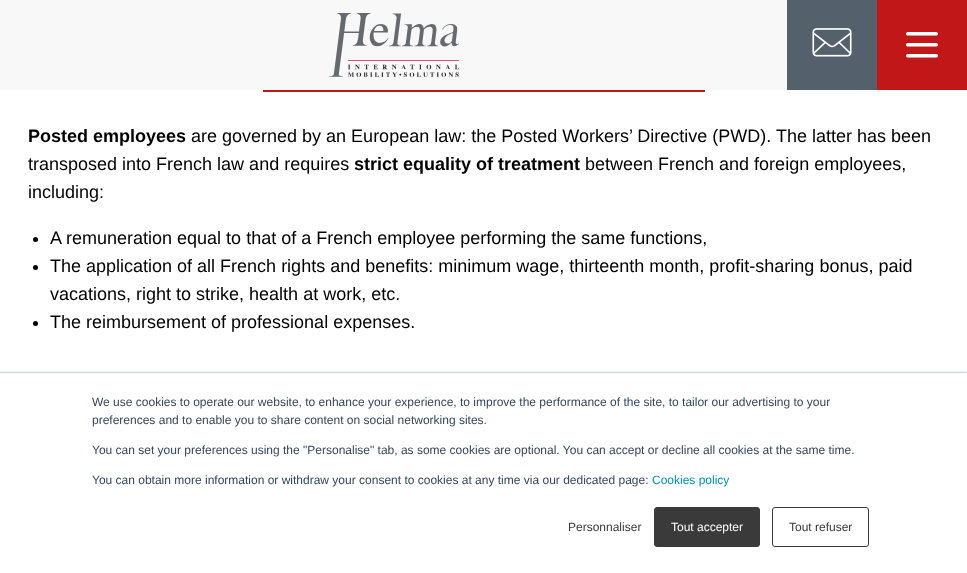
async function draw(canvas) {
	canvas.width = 967;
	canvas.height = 573;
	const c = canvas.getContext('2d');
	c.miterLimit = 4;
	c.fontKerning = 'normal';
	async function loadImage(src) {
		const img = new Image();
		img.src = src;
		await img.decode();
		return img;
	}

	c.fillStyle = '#fff';
	c.fillRect(0, 0, 967, 573);
	c.fillStyle = '#f8f8f8';
	c.fillRect(0, 0, 787, 90);
	c.drawImage(await loadImage('img1.png'), 329, 13, 130, 64);
	c.fillStyle = '#54616c';
	c.fillRect(787, 0, 90, 90);
	c.drawImage(await loadImage('img2.png'), 812, 28, 40, 29);
	c.fillStyle = '#c11718';
	c.fillRect(877, 0, 90, 90);
	c.drawImage(await loadImage('img3.png'), 906, 32, 32, 26);
	c.fillRect(263, 90, 442, 2);
	c.font = 'bold 18px Liberation Sans';
	c.fillStyle = '#000';
	c.fillText('Posted employees', 28, 142);
	c.font = '18px Liberation Sans';
	c.fillText('are governed by an European law: the Posted Workers’ Directive (PWD). The latter has been', 191, 142);
	c.fillText('transposed into French law and requires', 28, 170);
	c.font = 'bold 18px Liberation Sans';
	c.fillText('strict equality of treatment', 354, 170);
	c.font = '18px Liberation Sans';
	c.fillText('between French and foreign employees,', 585, 170);
	c.fillText('including:', 28, 198);
	c.beginPath();
	c.arc(35.5, 239.5, 2.5, 0, 2 * Math.PI);
	c.fill();
	c.fillText('A remuneration equal to that of a French employee performing the same functions,', 50, 244);
	c.beginPath();
	c.arc(35.5, 267.5, 2.5, 0, 2 * Math.PI);
	c.fill();
	c.fillText('The application of all French rights and benefits: minimum wage, thirteenth month, profit-sharing bonus, paid', 50, 272);
	c.fillText('vacations, right to strike, health at work, etc.', 50, 300);
	c.beginPath();
	c.arc(35.5, 323.5, 2.5, 0, 2 * Math.PI);
	c.fill();
	c.fillText('The reimbursement of professional expenses.', 50, 328);
	c.fillStyle = '#eaf0f6';
	c.filter = 'blur(1.5px)';
	c.beginPath();
	c.rect(0, 371, 967, 201);
	c.fill();
	c.filter = 'none';
	c.fillStyle = '#fff';
	c.fillRect(0, 373, 967, 200);
	c.fillStyle = '#cbd6e2';
	c.fillRect(0, 372, 967, 1);
	c.font = '12px Liberation Sans';
	c.fillStyle = '#33475b';
	for (const [text, x, y] of [
		['We use cookies to operate our website, to enhance your experience, to improve the performance of the site, to tailor our advertising to your', 92, 406],
		['preferences and to enable you to share content on social networking sites.', 92, 424],
		['You can set your preferences using the "Personalise" tab, as some cookies are optional. You can accept or decline all cookies at the same time.', 92, 454],
		['You can obtain more information or withdraw your consent to cookies at any time via our dedicated page:', 92, 484],
	]) {
		c.fillText(text, x, y);
	}
	c.fillStyle = '#0091ae';
	c.fillText('Cookies policy', 652, 484);
	c.fillStyle = '#3a3a3a';
	c.fillText('Personnaliser', 568, 531);
	c.beginPath();
	c.roundRect(654.5, 507.5, 105, 39, 2.5);
	c.fill();
	c.strokeStyle = '#3a3a3a';
	c.stroke();
	c.fillStyle = '#fff';
	c.fillText('Tout accepter', 671, 531);
	c.beginPath();
	c.roundRect(772.5, 507.5, 96, 39, 2.5);
	c.stroke();
	c.fillStyle = '#3a3a3a';
	c.fillText('Tout refuser', 789, 531);
}

draw(document.querySelector('canvas'));
